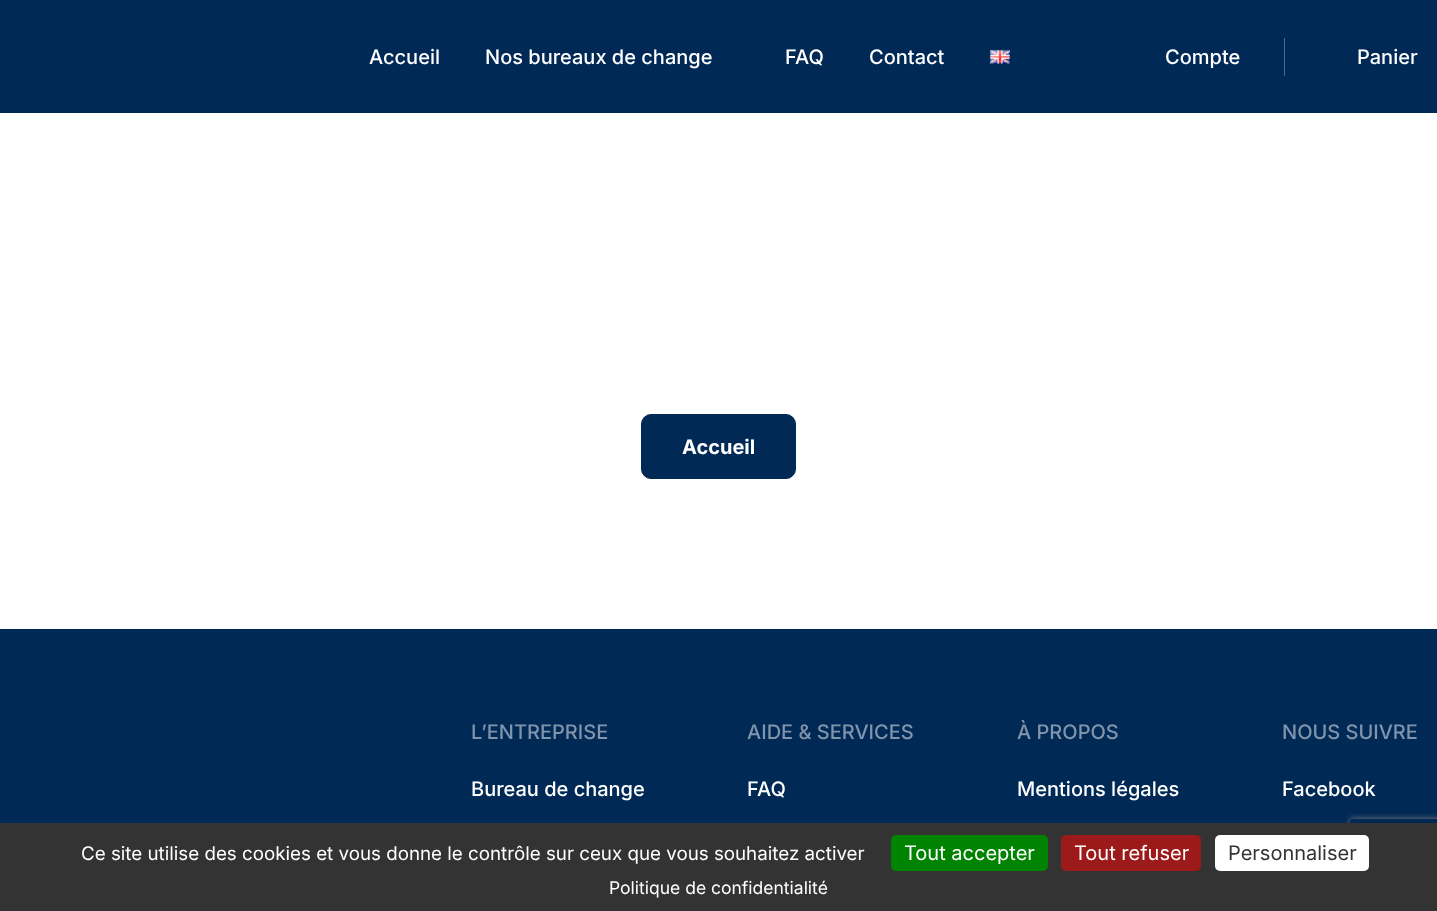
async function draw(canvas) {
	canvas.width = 1437;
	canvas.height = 911;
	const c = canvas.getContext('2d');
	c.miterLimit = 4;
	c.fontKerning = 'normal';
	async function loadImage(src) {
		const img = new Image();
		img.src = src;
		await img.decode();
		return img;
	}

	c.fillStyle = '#fff';
	c.fillRect(0, 0, 1437, 911);
	c.fillStyle = '#002956';
	c.fillRect(0, 0, 1437, 113);
	c.font = '500 20px Inter';
	c.fillStyle = '#fff';
	for (const [text, x, y] of [
		['Accueil', 369, 64],
		['Nos bureaux de change', 485, 64],
		['FAQ', 785, 64],
		['Contact', 869, 64],
	]) {
		c.fillText(text, x, y);
	}
	c.drawImage(await loadImage('img1.png'), 989, 49, 21, 15);
	c.fillText('Compte', 1165, 64);
	c.fillStyle = '#4d6989';
	c.fillRect(1284, 38, 1, 38);
	c.fillStyle = '#fff';
	c.fillText('Panier', 1357, 64);
	c.fillStyle = '#002956';
	c.beginPath();
	c.roundRect(641.5, 414.5, 154, 64, 9.5);
	c.fill();
	c.strokeStyle = '#002956';
	c.stroke();
	c.font = 'bold 20px Inter';
	c.fillStyle = '#fff';
	c.fillText('Accueil', 682, 454);
	c.fillStyle = '#002956';
	c.fillRect(0, 629, 1437, 194);
	c.font = '500 20px Inter';
	c.fillStyle = '#8094ab';
	c.fillText('L’ENTREPRISE', 471, 739);
	c.fillStyle = '#fff';
	c.fillText('Bureau de change', 471, 796);
	c.fillStyle = '#8094ab';
	c.fillText('AIDE & SERVICES', 747, 739);
	c.fillStyle = '#fff';
	c.fillText('FAQ', 747, 796);
	c.fillStyle = '#8094ab';
	c.fillText('À PROPOS', 1017, 739);
	c.fillStyle = '#fff';
	c.fillText('Mentions légales', 1017, 796);
	c.fillStyle = '#8094ab';
	c.fillText('NOUS SUIVRE', 1282, 739);
	c.fillStyle = '#fff';
	c.fillText('Facebook', 1282, 796);
	c.save();
	c.beginPath();
	c.moveTo(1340, 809);
	c.lineTo(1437, 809);
	c.lineTo(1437, 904);
	c.lineTo(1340, 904);
	c.closePath();
	c.moveTo(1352.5, 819);
	c.lineTo(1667.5, 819);
	c.bezierCurveTo(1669, 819, 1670, 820, 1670, 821.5);
	c.lineTo(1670, 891.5);
	c.bezierCurveTo(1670, 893, 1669, 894, 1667.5, 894);
	c.lineTo(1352.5, 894);
	c.bezierCurveTo(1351, 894, 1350, 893, 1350, 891.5);
	c.lineTo(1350, 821.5);
	c.bezierCurveTo(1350, 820, 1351, 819, 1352.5, 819);
	c.closePath();
	c.clip('evenodd');
	c.fillStyle = '#808080';
	c.filter = 'blur(3px)';
	c.beginPath();
	c.roundRect(1350, 819, 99, 75, 2.5);
	c.fill();
	c.filter = 'none';
	c.restore();
	c.fillStyle = '#333';
	c.fillRect(0, 823, 1437, 88);
	c.font = '18.75px Inter';
	c.fillStyle = '#fff';
	c.fillText('Ce site utilise des cookies et vous donne le contrôle sur ceux que vous souhaitez activer', 81, 860);
	c.fillStyle = '#008300';
	c.beginPath();
	c.roundRect(891, 835, 157, 36, 5);
	c.fill();
	c.font = '20px Inter';
	c.fillStyle = '#fff';
	c.fillText('Tout accepter', 904, 860);
	c.fillStyle = '#9c1a1a';
	c.beginPath();
	c.roundRect(1061, 835, 140, 36, 5);
	c.fill();
	c.fillStyle = '#fff';
	c.fillText('Tout refuser', 1074, 860);
	c.beginPath();
	c.roundRect(1215, 835, 154, 36, 5);
	c.fill();
	c.fillStyle = '#333';
	c.fillText('Personnaliser', 1228, 860);
	c.font = '17.5px Inter';
	c.fillStyle = '#fff';
	c.fillText('Politique de confidentialité', 609, 894);
}

draw(document.querySelector('canvas'));
